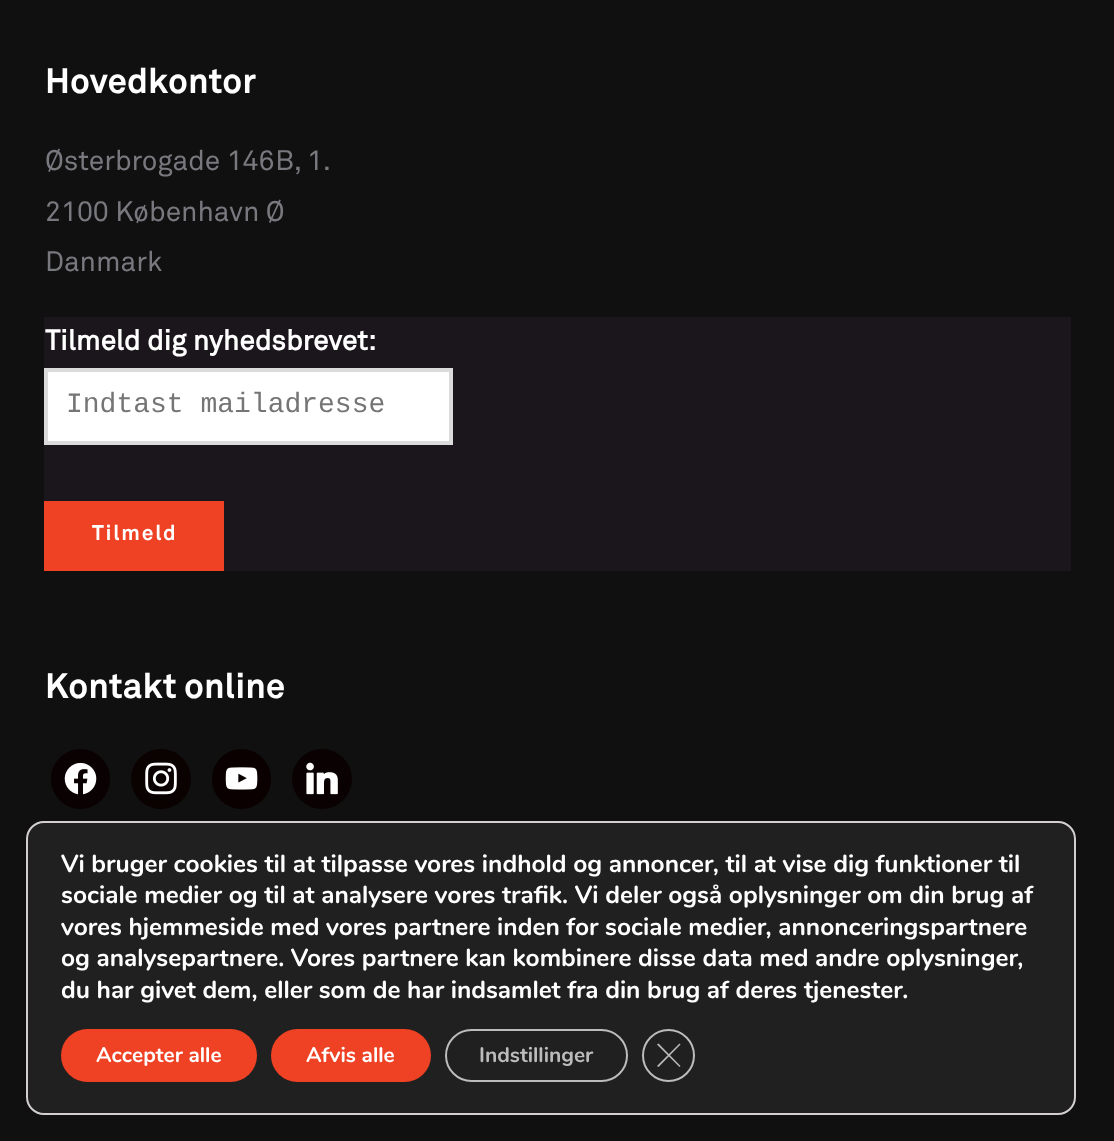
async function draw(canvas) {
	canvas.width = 1114;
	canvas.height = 1141;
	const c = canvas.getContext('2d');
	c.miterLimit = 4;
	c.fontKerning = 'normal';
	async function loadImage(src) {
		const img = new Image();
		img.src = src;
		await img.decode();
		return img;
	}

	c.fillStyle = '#101010';
	c.fillRect(0, 0, 1114, 1141);
	c.font = 'bold 35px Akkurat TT';
	c.fillStyle = '#fff';
	c.fillText('Hovedkontor', 45, 93);
	c.font = '28px Akkurat TT';
	c.fillStyle = '#78787f';
	for (const [text, x, y] of [
		['Østerbrogade 146B, 1.', 45, 170],
		['2100 København Ø', 45, 221],
		['Danmark', 45, 271],
	]) {
		c.fillText(text, x, y);
	}
	c.fillStyle = '#1b161c';
	c.fillRect(44, 317, 1027, 254);
	c.font = 'bold 28px "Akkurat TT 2"';
	c.fillStyle = '#fff';
	c.fillText('Tilmeld dig nyhedsbrevet:', 45, 350);
	c.beginPath();
	c.rect(46, 370, 405, 73);
	c.fill();
	c.strokeStyle = '#dbdbdb';
	c.lineWidth = 4;
	c.stroke();
	c.font = '28px Liberation Mono';
	c.fillStyle = '#757575';
	c.fillText('Indtast mailadresse', 66, 412);
	c.fillStyle = '#ef4123';
	c.fillRect(44, 501, 180, 70);
	c.letterSpacing = '1.75px';
	c.font = 'bold 21px Akkurat TT';
	c.fillStyle = '#fff';
	c.fillText('Tilmeld', 92, 540);
	c.letterSpacing = '0px';
	c.font = 'bold 35px Akkurat TT';
	c.fillText('Kontakt online', 45, 698);
	c.fillStyle = '#0a0202';
	c.beginPath();
	c.roundRect(51, 749, 59, 60, 29.5);
	c.fill();
	c.drawImage(await loadImage('img1.png'), 64, 762, 33, 33);
	c.fillStyle = '#0a0101';
	c.beginPath();
	c.arc(161, 779, 30, 0, 2 * Math.PI);
	c.fill();
	c.drawImage(await loadImage('img2.png'), 145, 762, 32, 33);
	c.fillStyle = '#0a0000';
	c.beginPath();
	c.roundRect(212, 749, 59, 60, 29.5);
	c.fill();
	c.drawImage(await loadImage('img3.png'), 225, 767, 33, 23);
	c.fillStyle = '#0a0202';
	c.beginPath();
	c.arc(322, 779, 30, 0, 2 * Math.PI);
	c.fill();
	c.drawImage(await loadImage('img4.png'), 306, 762, 32, 33);
	c.fillStyle = '#202020';
	c.beginPath();
	c.roundRect(27, 822, 1048, 292, 17);
	c.fill();
	c.strokeStyle = '#d3ced2';
	c.lineWidth = 2;
	c.stroke();
	c.font = 'bold 24.5px Nunito';
	c.fillStyle = '#fff';
	for (const [text, x, y] of [
		['Vi bruger cookies til at tilpasse vores indhold og annoncer, til at vise dig funktioner til', 61, 872],
		['sociale medier og til at analysere vores trafik. Vi deler også oplysninger om din brug af', 61, 903],
		['vores hjemmeside med vores partnere inden for sociale medier, annonceringspartnere', 61, 935],
		['og analysepartnere. Vores partnere kan kombinere disse data med andre oplysninger,', 61, 966],
		['du har givet dem, eller som de har indsamlet fra din brug af deres tjenester.', 61, 998],
	]) {
		c.fillText(text, x, y);
	}
	c.fillStyle = '#ef4123';
	c.beginPath();
	c.roundRect(61, 1029, 196, 53, 26.5);
	c.fill();
	c.font = 'bold 21px Nunito';
	c.fillStyle = '#fff';
	c.fillText('Accepter alle', 96, 1062);
	c.fillStyle = '#ef4123';
	c.beginPath();
	c.roundRect(271, 1029, 160, 53, 26.5);
	c.fill();
	c.fillStyle = '#fff';
	c.fillText('Afvis alle', 306, 1062);
	c.beginPath();
	c.roundRect(446, 1030, 181, 51, 25.5);
	c.strokeStyle = '#bcbcbc';
	c.stroke();
	c.fillStyle = '#bcbcbc';
	c.fillText('Indstillinger', 479, 1062);
	c.beginPath();
	c.arc(668.5, 1055.5, 25.5, 0, 2 * Math.PI);
	c.stroke();
	c.beginPath();
	c.moveTo(679.5, 1043.5);
	c.lineTo(680.5, 1044.5);
	c.lineTo(658.5, 1067);
	c.lineTo(657, 1066);
	c.closePath();
	c.fill();
	c.beginPath();
	c.moveTo(657, 1044.5);
	c.lineTo(658.5, 1043.5);
	c.lineTo(680.5, 1066);
	c.lineTo(679.5, 1067);
	c.closePath();
	c.fill();
}

draw(document.querySelector('canvas'));
